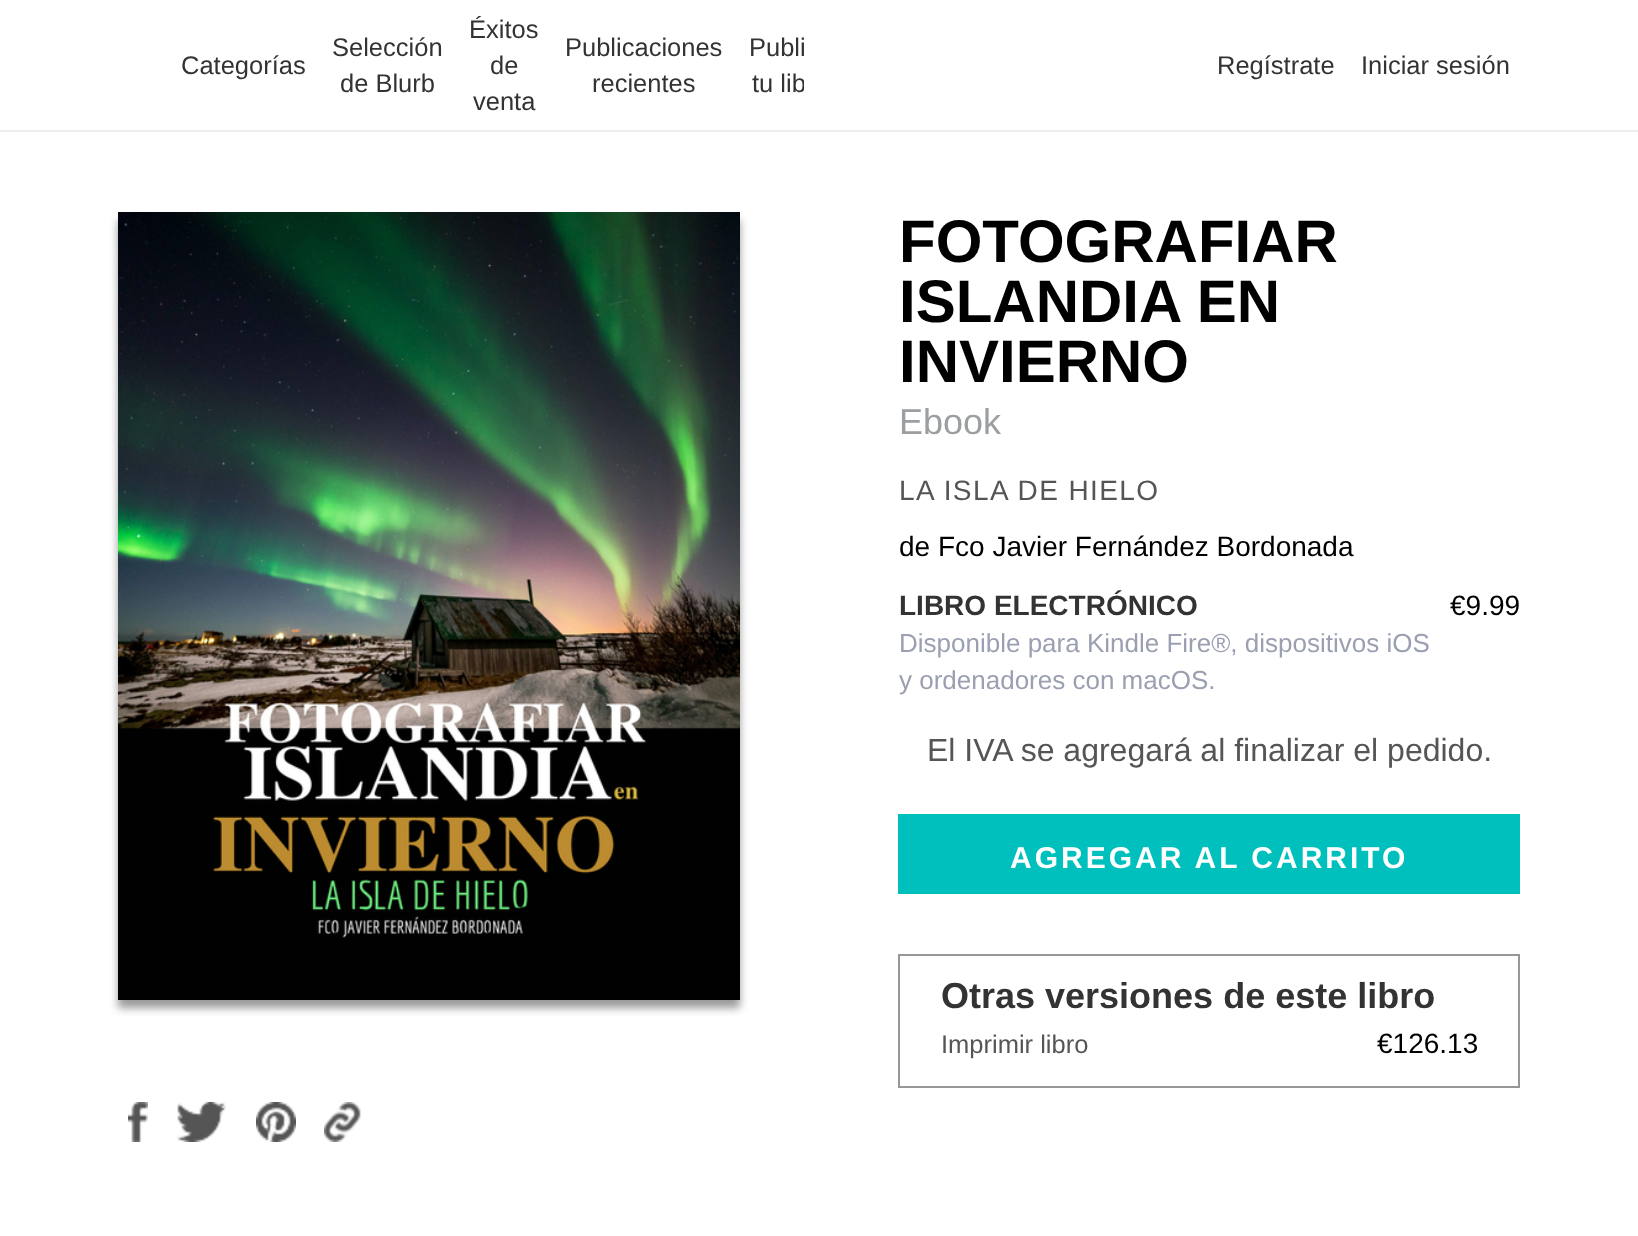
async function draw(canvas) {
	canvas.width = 1638;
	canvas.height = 1236;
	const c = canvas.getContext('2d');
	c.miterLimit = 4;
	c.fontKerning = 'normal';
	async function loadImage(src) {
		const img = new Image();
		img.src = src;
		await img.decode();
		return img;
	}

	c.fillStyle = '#fff';
	c.fillRect(0, 0, 1638, 1236);
	c.font = '25.5px Liberation Sans';
	c.fillStyle = '#333';
	for (const [text, x, y] of [
		['Categorías', 181, 74],
		['Selección', 332, 56],
		['de Blurb', 340, 92],
		['Éxitos', 469, 38],
		['de', 490, 74],
		['venta', 473, 110],
		['Publicaciones', 565, 56],
		['recientes', 592, 92],
		['Publi', 749, 56],
	]) {
		c.fillText(text, x, y);
	}
	c.save();
	c.beginPath();
	c.rect(154, 12, 650, 112);
	c.clip();
	c.fillText('tu lib', 752, 92);
	c.restore();
	c.fillText('Regístrate', 1217, 74);
	c.fillText('Iniciar sesión', 1361, 74);
	c.fillStyle = '#eee';
	c.fillRect(0, 130, 1638, 2);
	c.fillStyle = '#999';
	c.filter = 'blur(4px)';
	c.beginPath();
	c.rect(118, 220, 622, 788);
	c.fill();
	c.filter = 'none';
	c.drawImage(await loadImage('img1.png'), 118, 212, 622, 788);
	c.drawImage(await loadImage('img2.png'), 128, 1102, 20, 40);
	c.drawImage(await loadImage('img3.png'), 176, 1102, 50, 40);
	c.drawImage(await loadImage('img4.png'), 256, 1102, 40, 40);
	c.drawImage(await loadImage('img5.png'), 324, 1102, 37, 40);
	c.font = 'bold 60px Liberation Sans';
	c.fillStyle = '#000';
	for (const [text, x, y] of [
		['FOTOGRAFIAR', 899, 262],
		['ISLANDIA EN', 899, 322],
		['INVIERNO', 899, 382],
	]) {
		c.fillText(text, x, y);
	}
	c.font = '36px Liberation Sans';
	c.fillStyle = '#9b9fa1';
	c.fillText('Ebook', 899, 434);
	c.letterSpacing = '1.4px';
	c.font = '28px Liberation Sans';
	c.fillStyle = '#555';
	c.fillText('LA ISLA DE HIELO', 899, 500);
	c.letterSpacing = '0px';
	c.fillStyle = '#000';
	c.fillText('de Fco Javier Fernández Bordonada', 899, 556);
	c.font = 'bold 28px Liberation Sans';
	c.fillStyle = '#333';
	c.fillText('LIBRO ELECTRÓNICO', 899, 615);
	c.font = '28px Liberation Sans';
	c.fillStyle = '#000';
	c.fillText('€9.99', 1450, 615);
	c.font = '26px Liberation Sans';
	c.fillStyle = '#9a9fb1';
	c.fillText('Disponible para Kindle Fire®, dispositivos iOS', 899, 652);
	c.fillText('y ordenadores con macOS.', 899, 689);
	c.font = '32px Liberation Sans';
	c.fillStyle = '#555';
	c.fillText('El IVA se agregará al finalizar el pedido.', 927, 761);
	c.fillStyle = '#00c0be';
	c.fillRect(898, 814, 622, 80);
	c.letterSpacing = '3px';
	c.font = 'bold 30px Liberation Sans';
	c.fillStyle = '#fff';
	c.fillText('AGREGAR AL CARRITO', 1010, 868);
	c.strokeStyle = '#979797';
	c.lineWidth = 2;
	c.strokeRect(899, 955, 620, 132);
	c.letterSpacing = '0px';
	c.font = 'bold 36px Liberation Sans';
	c.fillStyle = '#333';
	c.fillText('Otras versiones de este libro', 941, 1008);
	c.font = '25.5px Liberation Sans';
	c.fillStyle = '#555';
	c.fillText('Imprimir libro', 941, 1053);
	c.font = '28px Liberation Sans';
	c.fillStyle = '#000';
	c.fillText('€126.13', 1377, 1053);
}

draw(document.querySelector('canvas'));
